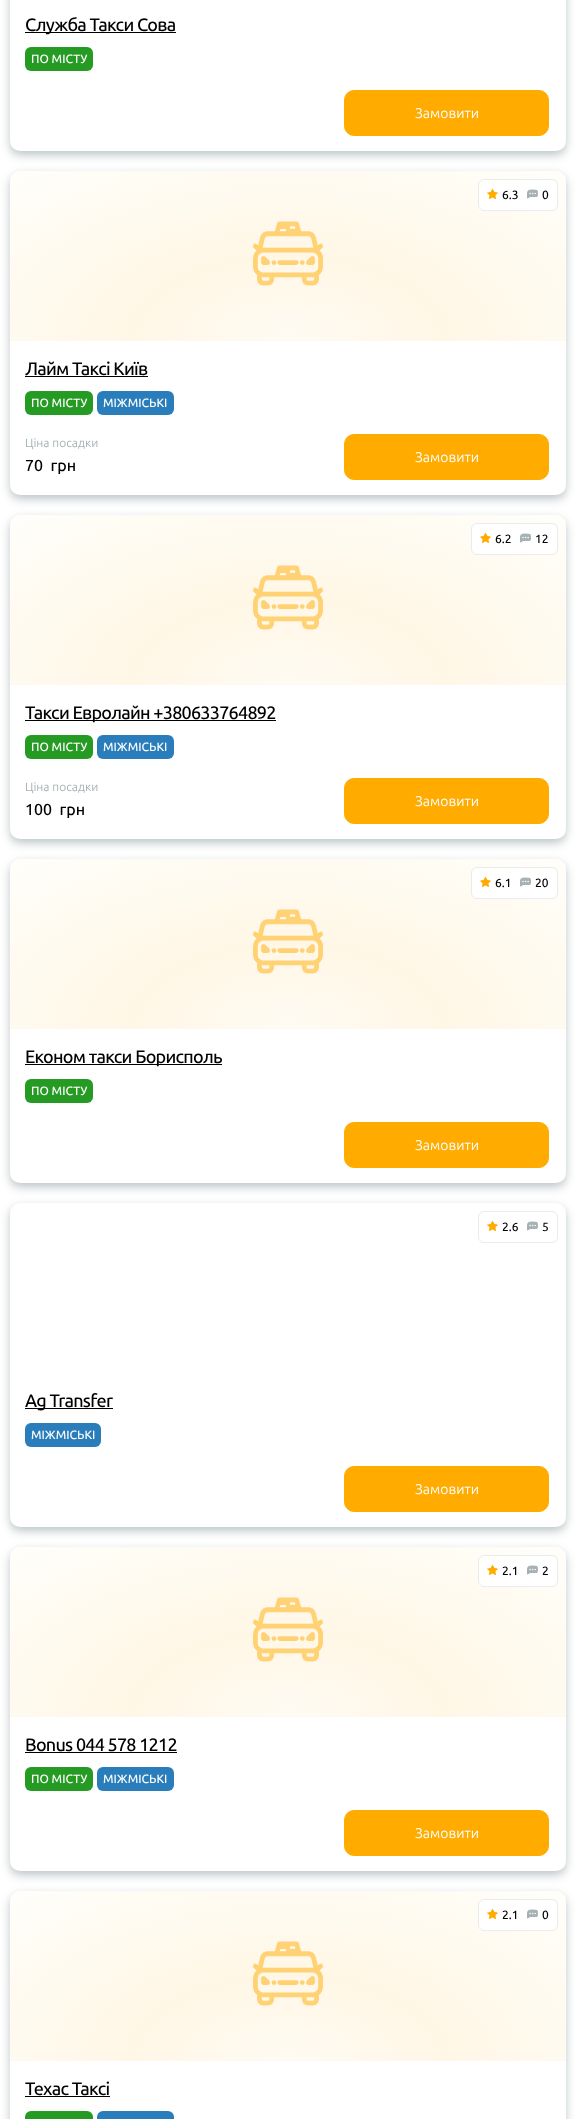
async function draw(canvas) {
	canvas.width = 576;
	canvas.height = 2119;
	const c = canvas.getContext('2d');
	c.miterLimit = 4;
	c.fontKerning = 'normal';
	async function loadImage(src) {
		const img = new Image();
		img.src = src;
		await img.decode();
		return img;
	}
	let gradient;

	c.fillStyle = '#fff';
	c.fillRect(0, 0, 576, 2119);
	c.fillStyle = '#213e444d';
	c.filter = 'blur(5px)';
	c.beginPath();
	c.roundRect(10, -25, 556, 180, 10);
	c.fill();
	c.filter = 'none';
	c.fillStyle = '#fff';
	c.beginPath();
	c.roundRect(10, -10, 556, 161, 10);
	c.fill();
	c.fillStyle = '#000';
	c.fillRect(25, 32, 151, 1);
	c.letterSpacing = '-0.75px';
	c.font = '500 18px Ubuntu';
	c.fillText('Служба Такси Сова', 25, 31);
	c.fillStyle = '#259b24';
	c.beginPath();
	c.roundRect(25, 47, 68, 24, 6);
	c.fill();
	c.letterSpacing = '0px';
	c.font = '500 12px Ubuntu';
	c.fillStyle = '#fff';
	c.fillText('ПО МІСТУ', 31, 63);
	c.fillStyle = '#ffab00';
	c.beginPath();
	c.roundRect(344.5, 90.5, 204, 45, 9.5);
	c.fill();
	c.strokeStyle = '#ffab00';
	c.stroke();
	c.font = '14px Ubuntu';
	c.fillStyle = '#fff';
	c.fillText('Замовити', 415, 118);
	c.fillStyle = '#213e444d';
	c.filter = 'blur(5px)';
	c.beginPath();
	c.roundRect(10, 175, 556, 324, 10);
	c.fill();
	c.filter = 'none';
	c.fillStyle = '#fff';
	c.beginPath();
	c.roundRect(10, 171, 556, 324, 10);
	c.fill();
	gradient = c.createRadialGradient(288, 633.07, 0, 288, 633.07, 414);
	gradient.addColorStop(0, '#fffbf3');
	gradient.addColorStop(0.38, '#fff7e6');
	gradient.addColorStop(1, '#fffefa');
	c.fillStyle = gradient;
	c.beginPath();
	c.roundRect(10, 171, 556, 170, [10, 10, 0, 0]);
	c.save();
	c.clip();
	c.scale(1, 223 / 414);
	c.fillRect(0, 0, 576, 3934);
	c.restore();
	c.drawImage(await loadImage('img1.png'), 253, 221, 70, 65);
	c.fillStyle = '#fff';
	c.beginPath();
	c.roundRect(478.5, 179.5, 79, 31, 5.5);
	c.fill();
	c.strokeStyle = '#e9ecec';
	c.stroke();
	c.drawImage(await loadImage('img2.png'), 487, 189, 11, 10);
	c.font = '500 12px Ubuntu';
	c.fillStyle = '#000';
	c.fillText('6.3', 502, 199);
	c.drawImage(await loadImage('img3.png'), 527, 189, 11, 10);
	c.fillText('0', 542, 199);
	c.letterSpacing = '-0.75px';
	c.font = '500 18px Ubuntu';
	c.fillText('Лайм Таксі Київ', 25, 375);
	c.fillRect(25, 376, 123, 1);
	c.fillStyle = '#259b24';
	c.beginPath();
	c.roundRect(25, 391, 68, 24, 6);
	c.fill();
	c.letterSpacing = '0px';
	c.font = '500 12px Ubuntu';
	c.fillStyle = '#fff';
	c.fillText('ПО МІСТУ', 31, 407);
	c.fillStyle = '#2a7dbb';
	c.beginPath();
	c.roundRect(97, 391, 77, 24, 6);
	c.fill();
	c.fillStyle = '#fff';
	c.fillText('МІЖМІСЬКІ', 103, 407);
	c.font = '12px Ubuntu';
	c.fillStyle = '#a6b2b4';
	c.fillText('Ціна посадки', 25, 447);
	c.font = '500 16px Ubuntu';
	c.fillStyle = '#000';
	c.fillText('70  грн', 25, 471);
	c.fillStyle = '#ffab00';
	c.beginPath();
	c.roundRect(344.5, 434.5, 204, 45, 9.5);
	c.fill();
	c.strokeStyle = '#ffab00';
	c.stroke();
	c.font = '14px Ubuntu';
	c.fillStyle = '#fff';
	c.fillText('Замовити', 415, 462);
	c.fillStyle = '#213e444d';
	c.filter = 'blur(5px)';
	c.beginPath();
	c.roundRect(10, 519, 556, 324, 10);
	c.fill();
	c.filter = 'none';
	c.fillStyle = '#fff';
	c.beginPath();
	c.roundRect(10, 515, 556, 324, 10);
	c.fill();
	gradient = c.createRadialGradient(288, 1271.7, 0, 288, 1271.7, 414);
	gradient.addColorStop(0, '#fffbf3');
	gradient.addColorStop(0.38, '#fff7e6');
	gradient.addColorStop(1, '#fffefa');
	c.fillStyle = gradient;
	c.beginPath();
	c.roundRect(10, 515, 556, 170, [10, 10, 0, 0]);
	c.save();
	c.clip();
	c.scale(1, 223 / 414);
	c.fillRect(0, 0, 576, 3934);
	c.restore();
	c.drawImage(await loadImage('img1.png'), 253, 565, 70, 65);
	c.fillStyle = '#fff';
	c.beginPath();
	c.roundRect(471.5, 523.5, 86, 31, 5.5);
	c.fill();
	c.strokeStyle = '#e9ecec';
	c.stroke();
	c.drawImage(await loadImage('img2.png'), 480, 533, 11, 10);
	c.font = '500 12px Ubuntu';
	c.fillStyle = '#000';
	c.fillText('6.2', 495, 543);
	c.drawImage(await loadImage('img3.png'), 520, 533, 11, 10);
	c.fillText('12', 535, 543);
	c.fillRect(25, 720, 251, 1);
	c.letterSpacing = '-0.75px';
	c.font = '500 18px Ubuntu';
	c.fillText('Такси Евролайн +380633764892', 25, 719);
	c.fillStyle = '#259b24';
	c.beginPath();
	c.roundRect(25, 735, 68, 24, 6);
	c.fill();
	c.letterSpacing = '0px';
	c.font = '500 12px Ubuntu';
	c.fillStyle = '#fff';
	c.fillText('ПО МІСТУ', 31, 751);
	c.fillStyle = '#2a7dbb';
	c.beginPath();
	c.roundRect(97, 735, 77, 24, 6);
	c.fill();
	c.fillStyle = '#fff';
	c.fillText('МІЖМІСЬКІ', 103, 751);
	c.font = '12px Ubuntu';
	c.fillStyle = '#a6b2b4';
	c.fillText('Ціна посадки', 25, 791);
	c.font = '500 16px Ubuntu';
	c.fillStyle = '#000';
	c.fillText('100  грн', 25, 815);
	c.fillStyle = '#ffab00';
	c.beginPath();
	c.roundRect(344.5, 778.5, 204, 45, 9.5);
	c.fill();
	c.strokeStyle = '#ffab00';
	c.stroke();
	c.font = '14px Ubuntu';
	c.fillStyle = '#fff';
	c.fillText('Замовити', 415, 806);
	c.fillStyle = '#213e444d';
	c.filter = 'blur(5px)';
	c.beginPath();
	c.roundRect(10, 863, 556, 324, 10);
	c.fill();
	c.filter = 'none';
	c.fillStyle = '#fff';
	c.beginPath();
	c.roundRect(10, 859, 556, 324, 10);
	c.fill();
	gradient = c.createRadialGradient(288, 1910.34, 0, 288, 1910.34, 414);
	gradient.addColorStop(0, '#fffbf3');
	gradient.addColorStop(0.38, '#fff7e6');
	gradient.addColorStop(1, '#fffefa');
	c.fillStyle = gradient;
	c.beginPath();
	c.roundRect(10, 859, 556, 170, [10, 10, 0, 0]);
	c.save();
	c.clip();
	c.scale(1, 223 / 414);
	c.fillRect(0, 0, 576, 3934);
	c.restore();
	c.drawImage(await loadImage('img1.png'), 253, 909, 70, 65);
	c.fillStyle = '#fff';
	c.beginPath();
	c.roundRect(471.5, 867.5, 86, 31, 5.5);
	c.fill();
	c.strokeStyle = '#e9ecec';
	c.stroke();
	c.drawImage(await loadImage('img2.png'), 480, 877, 11, 10);
	c.font = '500 12px Ubuntu';
	c.fillStyle = '#000';
	c.fillText('6.1', 495, 887);
	c.drawImage(await loadImage('img3.png'), 520, 877, 11, 10);
	c.fillText('20', 535, 887);
	c.fillRect(25, 1064, 197, 1);
	c.letterSpacing = '-0.75px';
	c.font = '500 18px Ubuntu';
	c.fillText('Економ такси Борисполь', 25, 1063);
	c.fillStyle = '#259b24';
	c.beginPath();
	c.roundRect(25, 1079, 68, 24, 6);
	c.fill();
	c.letterSpacing = '0px';
	c.font = '500 12px Ubuntu';
	c.fillStyle = '#fff';
	c.fillText('ПО МІСТУ', 31, 1095);
	c.fillStyle = '#ffab00';
	c.beginPath();
	c.roundRect(344.5, 1122.5, 204, 45, 9.5);
	c.fill();
	c.strokeStyle = '#ffab00';
	c.stroke();
	c.font = '14px Ubuntu';
	c.fillStyle = '#fff';
	c.fillText('Замовити', 415, 1150);
	c.fillStyle = '#213e444d';
	c.filter = 'blur(5px)';
	c.beginPath();
	c.roundRect(10, 1207, 556, 324, 10);
	c.fill();
	c.filter = 'none';
	c.fillStyle = '#fff';
	c.beginPath();
	c.roundRect(10, 1203, 556, 324, 10);
	c.fill();
	c.beginPath();
	c.roundRect(478.5, 1211.5, 79, 31, 5.5);
	c.strokeStyle = '#e9ecec';
	c.stroke();
	c.drawImage(await loadImage('img2.png'), 487, 1221, 11, 10);
	c.font = '500 12px Ubuntu';
	c.fillStyle = '#000';
	c.fillText('2.6', 502, 1231);
	c.drawImage(await loadImage('img3.png'), 527, 1221, 11, 10);
	c.fillText('5', 542, 1231);
	c.fillRect(25, 1408, 88, 1);
	c.letterSpacing = '-0.75px';
	c.font = '500 18px Ubuntu';
	c.fillText('Ag Transfer', 25, 1407);
	c.fillStyle = '#2a7dbb';
	c.beginPath();
	c.roundRect(25, 1423, 76, 24, 6);
	c.fill();
	c.letterSpacing = '0px';
	c.font = '500 12px Ubuntu';
	c.fillStyle = '#fff';
	c.fillText('МІЖМІСЬКІ', 31, 1439);
	c.fillStyle = '#ffab00';
	c.beginPath();
	c.roundRect(344.5, 1466.5, 204, 45, 9.5);
	c.fill();
	c.strokeStyle = '#ffab00';
	c.stroke();
	c.font = '14px Ubuntu';
	c.fillStyle = '#fff';
	c.fillText('Замовити', 415, 1494);
	c.fillStyle = '#213e444d';
	c.filter = 'blur(5px)';
	c.beginPath();
	c.roundRect(10, 1551, 556, 324, 10);
	c.fill();
	c.filter = 'none';
	c.fillStyle = '#fff';
	c.beginPath();
	c.roundRect(10, 1547, 556, 324, 10);
	c.fill();
	gradient = c.createRadialGradient(288, 3187.61, 0, 288, 3187.61, 414);
	gradient.addColorStop(0, '#fffbf3');
	gradient.addColorStop(0.38, '#fff7e6');
	gradient.addColorStop(1, '#fffefa');
	c.fillStyle = gradient;
	c.beginPath();
	c.roundRect(10, 1547, 556, 170, [10, 10, 0, 0]);
	c.save();
	c.clip();
	c.scale(1, 223 / 414);
	c.fillRect(0, 0, 576, 3934);
	c.restore();
	c.drawImage(await loadImage('img1.png'), 253, 1597, 70, 65);
	c.fillStyle = '#fff';
	c.beginPath();
	c.roundRect(478.5, 1555.5, 79, 31, 5.5);
	c.fill();
	c.strokeStyle = '#e9ecec';
	c.stroke();
	c.drawImage(await loadImage('img2.png'), 487, 1565, 11, 10);
	c.font = '500 12px Ubuntu';
	c.fillStyle = '#000';
	c.fillText('2.1', 502, 1575);
	c.drawImage(await loadImage('img3.png'), 527, 1565, 11, 10);
	c.fillText('2', 542, 1575);
	c.letterSpacing = '-0.75px';
	c.font = '500 18px Ubuntu';
	c.fillText('Bonus 044 578 1212', 25, 1751);
	c.fillRect(25, 1752, 152, 1);
	c.fillStyle = '#259b24';
	c.beginPath();
	c.roundRect(25, 1767, 68, 24, 6);
	c.fill();
	c.letterSpacing = '0px';
	c.font = '500 12px Ubuntu';
	c.fillStyle = '#fff';
	c.fillText('ПО МІСТУ', 31, 1783);
	c.fillStyle = '#2a7dbb';
	c.beginPath();
	c.roundRect(97, 1767, 77, 24, 6);
	c.fill();
	c.fillStyle = '#fff';
	c.fillText('МІЖМІСЬКІ', 103, 1783);
	c.fillStyle = '#ffab00';
	c.beginPath();
	c.roundRect(344.5, 1810.5, 204, 45, 9.5);
	c.fill();
	c.strokeStyle = '#ffab00';
	c.stroke();
	c.font = '14px Ubuntu';
	c.fillStyle = '#fff';
	c.fillText('Замовити', 415, 1838);
	c.fillStyle = '#213e444d';
	c.filter = 'blur(5px)';
	c.beginPath();
	c.roundRect(10, 1895, 556, 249, 10);
	c.fill();
	c.filter = 'none';
	c.fillStyle = '#fff';
	c.beginPath();
	c.roundRect(10, 1891, 556, 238, 10);
	c.fill();
	gradient = c.createRadialGradient(288, 3826.25, 0, 288, 3826.25, 414);
	gradient.addColorStop(0, '#fffbf3');
	gradient.addColorStop(0.38, '#fff7e6');
	gradient.addColorStop(1, '#fffefa');
	c.fillStyle = gradient;
	c.beginPath();
	c.roundRect(10, 1891, 556, 170, [10, 10, 0, 0]);
	c.save();
	c.clip();
	c.scale(1, 223 / 414);
	c.fillRect(0, 0, 576, 3934);
	c.restore();
	c.drawImage(await loadImage('img1.png'), 253, 1941, 70, 65);
	c.fillStyle = '#fff';
	c.beginPath();
	c.roundRect(478.5, 1899.5, 79, 31, 5.5);
	c.fill();
	c.strokeStyle = '#e9ecec';
	c.stroke();
	c.drawImage(await loadImage('img2.png'), 487, 1909, 11, 10);
	c.font = '500 12px Ubuntu';
	c.fillStyle = '#000';
	c.fillText('2.1', 502, 1919);
	c.drawImage(await loadImage('img3.png'), 527, 1909, 11, 10);
	c.fillText('0', 542, 1919);
	c.letterSpacing = '-0.75px';
	c.font = '500 18px Ubuntu';
	c.fillText('Техас Таксі', 25, 2095);
	c.fillRect(25, 2096, 85, 1);
	c.fillStyle = '#259b24';
	c.beginPath();
	c.roundRect(25, 2111, 68, 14, 6);
	c.fill();
	c.fillStyle = '#2a7dbb';
	c.beginPath();
	c.roundRect(97, 2111, 77, 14, 6);
	c.fill();
}

draw(document.querySelector('canvas'));
